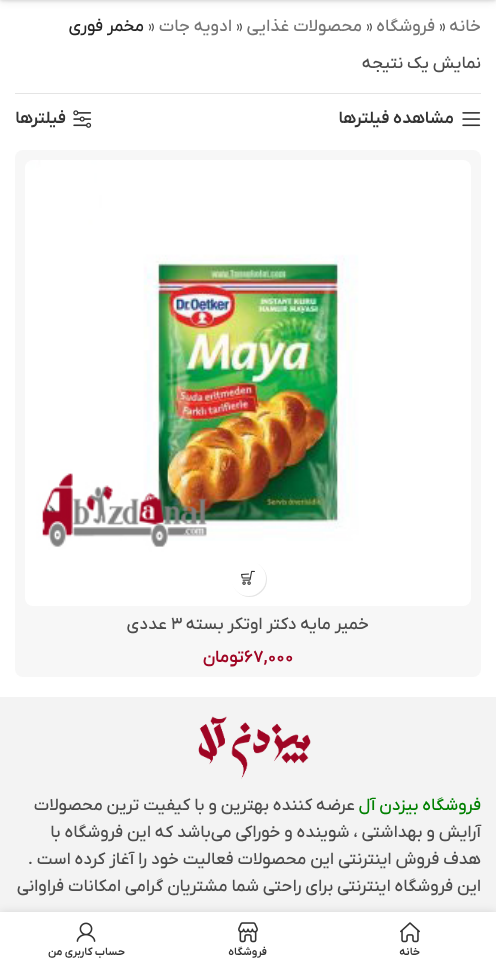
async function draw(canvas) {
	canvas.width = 496;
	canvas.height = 967;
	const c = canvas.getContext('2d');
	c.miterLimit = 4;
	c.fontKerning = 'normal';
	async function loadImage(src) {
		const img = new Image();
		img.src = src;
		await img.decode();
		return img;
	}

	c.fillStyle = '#fff';
	c.fillRect(0, 0, 496, 967);
	c.fillStyle = '#0000001a';
	c.filter = 'blur(1.5px)';
	c.beginPath();
	c.rect(0, -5, 496, 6);
	c.fill();
	c.filter = 'none';
	c.filter = 'blur(4px)';
	c.beginPath();
	c.rect(0, -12, 496, 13);
	c.fill();
	c.filter = 'none';
	c.fillStyle = '#e4e4e4';
	c.fillRect(15, 93, 466, 1);
	c.direction = 'rtl';
	c.font = '500 17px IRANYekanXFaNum';
	c.fillStyle = '#767676';
	c.fillText('خانه', 481, 31);
	c.direction = 'ltr';
	c.fillStyle = '#4c4c4c';
	c.fillText('»', 439, 31);
	c.direction = 'rtl';
	c.fillStyle = '#767676';
	c.fillText('فروشگاه', 435, 31);
	c.direction = 'ltr';
	c.fillStyle = '#4c4c4c';
	c.fillText('»', 366, 31);
	c.direction = 'rtl';
	c.fillStyle = '#767676';
	c.fillText('محصولات غذایی', 362, 31);
	c.direction = 'ltr';
	c.fillStyle = '#4c4c4c';
	c.fillText('»', 236, 31);
	c.direction = 'rtl';
	c.fillStyle = '#767676';
	c.fillText('ادویه جات', 232, 31);
	c.direction = 'ltr';
	c.fillStyle = '#4c4c4c';
	c.fillText('»', 148, 31);
	c.direction = 'rtl';
	c.fillStyle = '#242424';
	c.fillText('مخمر فوری', 144, 31);
	c.fillStyle = '#4c4c4c';
	c.fillText('نمایش یک نتیجه', 481, 68);
	c.drawImage(await loadImage('img1.png'), 462, 112, 19, 15);
	c.font = '600 17px IRANYekanXFaNum';
	c.fillStyle = '#333';
	c.fillText('مشاهده فیلترها', 454, 123);
	c.drawImage(await loadImage('img2.png'), 73, 110, 19, 18);
	c.fillText('فیلترها', 66, 123);
	c.fillStyle = '#f7f7f7';
	c.beginPath();
	c.roundRect(15, 150, 466, 527, 8);
	c.fill();
	c.drawImage(await loadImage('img3.png'), 25, 160, 446, 446);
	c.fillStyle = '#0000001a';
	c.filter = 'blur(0.5px)';
	c.beginPath();
	c.roundRect(232, 562, 35, 35, 17.5);
	c.fill();
	c.filter = 'none';
	c.fillStyle = '#fff';
	c.beginPath();
	c.arc(248.5, 578.5, 17.5, 0, 2 * Math.PI);
	c.fill();
	c.drawImage(await loadImage('img4.png'), 241, 570, 14, 15);
	c.font = '500 17px IRANYekanXFaNum';
	c.fillStyle = '#4c4c4c';
	c.fillText('خمیر مایه دکتر اوتکر بسته', 369, 629);
	c.direction = 'ltr';
	c.fillText('۳', 171, 629);
	c.direction = 'rtl';
	c.fillText('عددی', 167, 629);
	c.direction = 'ltr';
	c.font = '600 17px IRANYekanXFaNum';
	c.fillStyle = '#a00524';
	c.fillText('67,000', 244, 662);
	c.direction = 'rtl';
	c.fillText('تومان', 244, 662);
	c.fillStyle = '#f3f3f3';
	c.fillRect(0, 697, 496, 215);
	c.drawImage(await loadImage('img5.png'), 198, 716, 113, 63);
	c.font = '500 17px IRANYekanXFaNum';
	c.fillStyle = '#008000';
	c.fillText('فروشگاه بیزدن آل', 481, 810);
	c.fillStyle = '#4c4c4c';
	for (const [text, x, y] of [
		['عرضه کننده بهترین و با کیفیت ترین محصولات', 355, 810],
		['آرایش و بهداشتی ، شوینده و خوراکی می‌باشد که این فروشگاه با', 481, 837],
		['هدف فروش اینترنتی این محصولات فعالیت خود را آغاز کرده است .', 481, 864],
		['این فروشگاه اینترنتی برای راحتی شما مشتریان گرامی امکانات فراوانی', 481, 891],
	]) {
		c.fillText(text, x, y);
	}
	c.fillStyle = '#0000001f';
	c.filter = 'blur(4.5px)';
	c.beginPath();
	c.rect(0, 912, 496, 55);
	c.fill();
	c.filter = 'none';
	c.fillStyle = '#fff';
	c.fillRect(0, 912, 496, 55);
	c.drawImage(await loadImage('img6.png'), 400, 922, 20, 21);
	c.font = '600 11px IRANYekanXFaNum';
	c.fillStyle = '#333';
	c.fillText('خانه', 420, 955);
	c.drawImage(await loadImage('img7.png'), 238, 922, 20, 21);
	c.fillText('فروشگاه', 267, 955);
	c.drawImage(await loadImage('img8.png'), 76, 922, 20, 20);
	c.fillText('حساب کاربری من', 125, 955);
}

draw(document.querySelector('canvas'));
